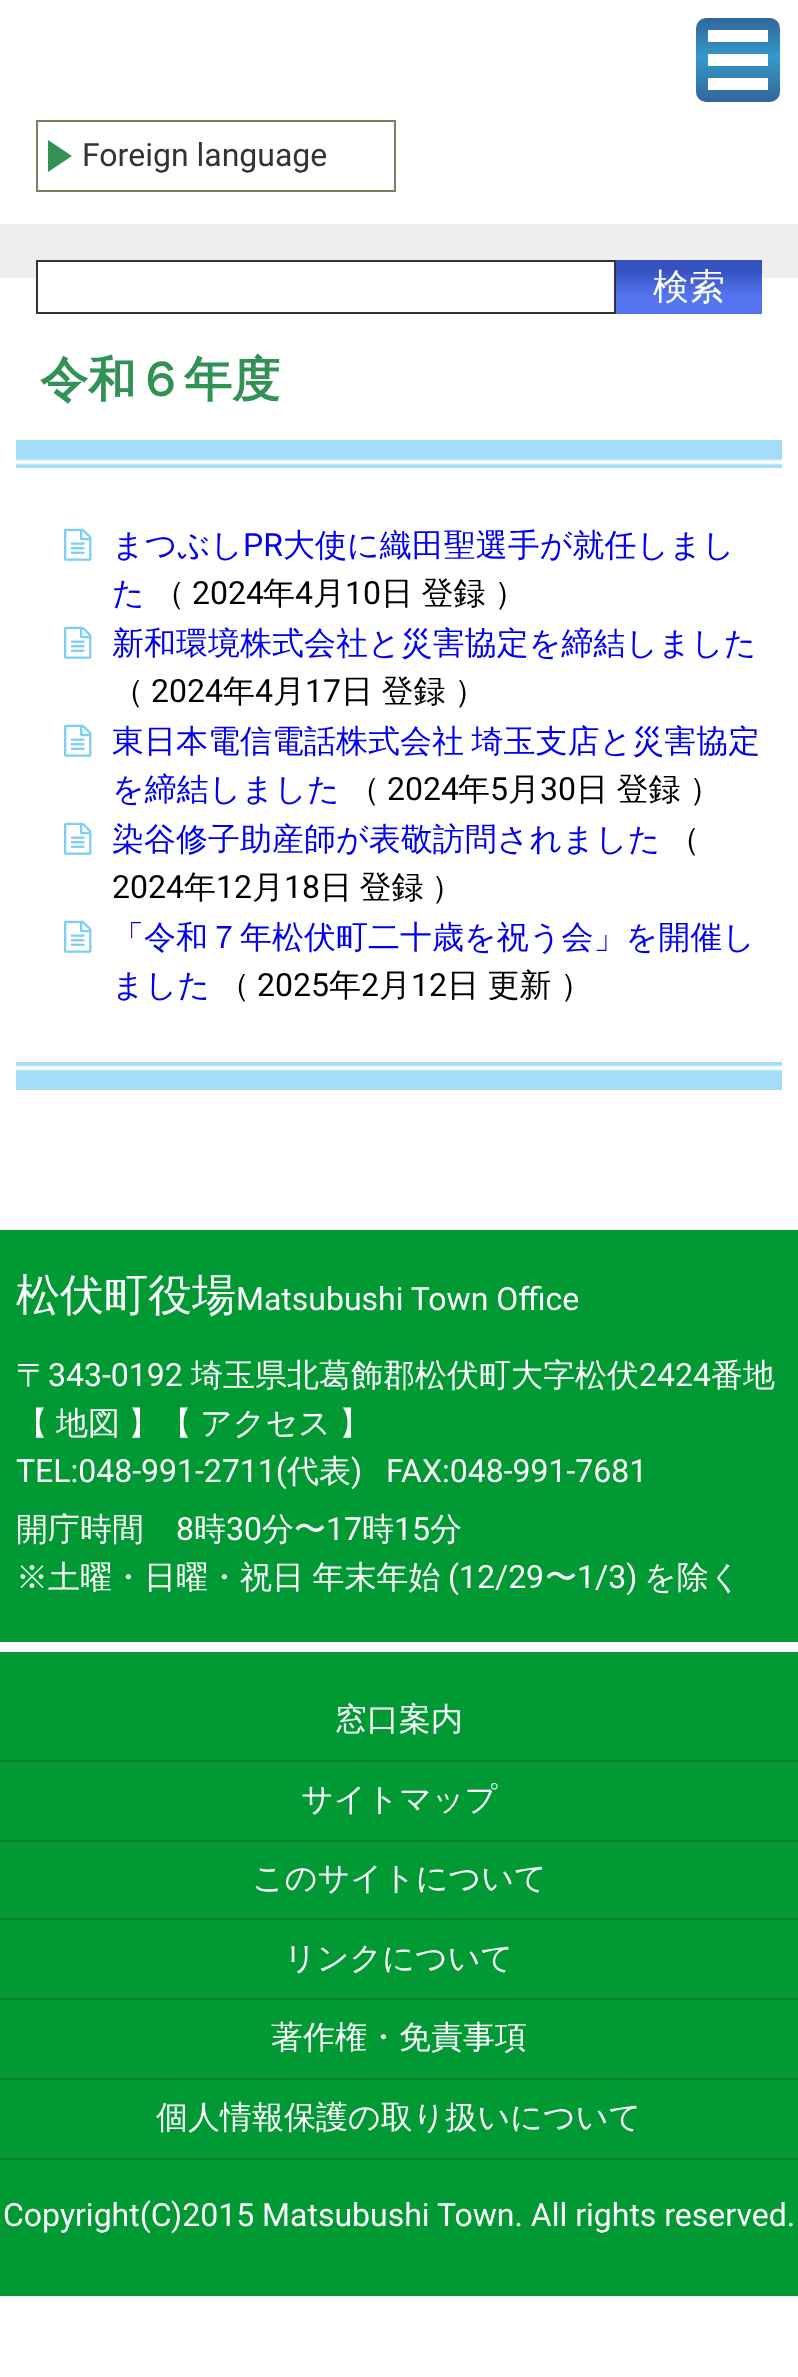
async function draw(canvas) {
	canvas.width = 798;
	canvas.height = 2377;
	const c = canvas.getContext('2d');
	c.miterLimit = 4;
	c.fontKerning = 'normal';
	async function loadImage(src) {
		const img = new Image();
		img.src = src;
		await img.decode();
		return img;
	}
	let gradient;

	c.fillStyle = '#fff';
	c.fillRect(0, 0, 798, 2377);
	gradient = c.createLinearGradient(738, 18, 738, 102);
	gradient.addColorStop(0, '#369');
	gradient.addColorStop(0.47, '#39c');
	gradient.addColorStop(1, '#369');
	c.fillStyle = gradient;
	c.beginPath();
	c.roundRect(696, 18, 84, 84, 10);
	c.fill();
	for (const [x, y, w, h, color] of [
		[708, 54, 60, 12, '#fff'],
		[708, 30, 60, 12, '#fff'],
		[708, 78, 60, 12, '#fff'],
	]) {
		c.fillStyle = color;
		c.fillRect(x, y, w, h);
	}
	c.strokeStyle = '#78805f';
	c.lineWidth = 2;
	c.strokeRect(37, 121, 358, 70);
	c.fillStyle = '#329155';
	c.beginPath();
	c.moveTo(48, 172);
	c.lineTo(48, 140);
	c.lineTo(72, 156);
	c.closePath();
	c.fill();
	c.font = '32px Roboto';
	c.fillStyle = '#333';
	c.fillText('Foreign language', 82, 166);
	c.fillStyle = '#eee';
	c.fillRect(0, 224, 798, 54);
	c.fillStyle = '#fff';
	c.fillRect(38, 262, 576, 16);
	c.strokeStyle = '#333';
	c.strokeRect(37, 261, 578, 52);
	gradient = c.createLinearGradient(689, 260, 689, 314);
	gradient.addColorStop(0.19, '#3552c0');
	gradient.addColorStop(0.66, '#5474f0');
	c.fillStyle = gradient;
	c.fillRect(616, 260, 146, 54);
	c.font = '500 36px WenQuanYi Zen Hei';
	c.fillStyle = '#fff';
	c.fillText('検索', 653, 299);
	c.font = 'bold 48px WenQuanYi Zen Hei';
	c.fillStyle = '#329155';
	c.fillText('令和６年度', 40, 396);
	c.drawImage(await loadImage('img1.png'), 16, 440, 766, 28);
	c.drawImage(await loadImage('img2.png'), 16, 1062, 766, 28);
	c.drawImage(await loadImage('img3.png'), 64, 528, 28, 33);
	c.font = '500 32px WenQuanYi Zen Hei';
	c.fillStyle = '#00e';
	c.fillText('まつぶし', 112, 556);
	c.font = '32px Roboto';
	c.fillText('PR', 243, 556);
	c.font = '500 32px WenQuanYi Zen Hei';
	c.fillText('大使に織田聖選手が就任しまし', 283, 556);
	c.fillText('た', 112, 604);
	c.fillStyle = '#000';
	c.fillText('（', 153, 604);
	c.font = '32px Roboto';
	c.fillText('2024', 192, 604);
	c.font = '500 32px WenQuanYi Zen Hei';
	c.fillText('年', 263, 604);
	c.font = '32px Roboto';
	c.fillText('4', 295, 604);
	c.font = '500 32px WenQuanYi Zen Hei';
	c.fillText('月', 313, 604);
	c.font = '32px Roboto';
	c.fillText('10', 345, 604);
	c.wordSpacing = '-1px';
	c.font = '500 32px WenQuanYi Zen Hei';
	c.fillText('日 登録 ）', 381, 604);
	c.drawImage(await loadImage('img3.png'), 64, 626, 28, 33);
	c.wordSpacing = '0px';
	c.fillStyle = '#00e';
	c.fillText('新和環境株式会社と災害協定を締結しました', 112, 654);
	c.fillStyle = '#000';
	c.fillText('（', 112, 702);
	c.font = '32px Roboto';
	c.fillText('2024', 151, 702);
	c.font = '500 32px WenQuanYi Zen Hei';
	c.fillText('年', 223, 702);
	c.font = '32px Roboto';
	c.fillText('4', 255, 702);
	c.font = '500 32px WenQuanYi Zen Hei';
	c.fillText('月', 273, 702);
	c.font = '32px Roboto';
	c.fillText('17', 305, 702);
	c.wordSpacing = '-1px';
	c.font = '500 32px WenQuanYi Zen Hei';
	c.fillText('日 登録 ）', 341, 702);
	c.drawImage(await loadImage('img3.png'), 64, 724, 28, 33);
	c.wordSpacing = '-2px';
	c.fillStyle = '#00e';
	c.fillText('東日本電信電話株式会社 埼玉支店と災害協定', 112, 752);
	c.wordSpacing = '0px';
	c.fillText('を締結しました', 112, 800);
	c.fillStyle = '#000';
	c.fillText('（', 348, 800);
	c.font = '32px Roboto';
	c.fillText('2024', 387, 800);
	c.font = '500 32px WenQuanYi Zen Hei';
	c.fillText('年', 458, 800);
	c.font = '32px Roboto';
	c.fillText('5', 490, 800);
	c.font = '500 32px WenQuanYi Zen Hei';
	c.fillText('月', 508, 800);
	c.font = '32px Roboto';
	c.fillText('30', 540, 800);
	c.wordSpacing = '-1px';
	c.font = '500 32px WenQuanYi Zen Hei';
	c.fillText('日 登録 ）', 576, 800);
	c.drawImage(await loadImage('img3.png'), 64, 822, 28, 33);
	c.wordSpacing = '0px';
	c.fillStyle = '#00e';
	c.fillText('染谷修子助産師が表敬訪問されました', 112, 850);
	c.fillStyle = '#000';
	c.fillText('（', 668, 850);
	c.font = '32px Roboto';
	c.fillText('2024', 112, 898);
	c.font = '500 32px WenQuanYi Zen Hei';
	c.fillText('年', 184, 898);
	c.font = '32px Roboto';
	c.fillText('12', 216, 898);
	c.font = '500 32px WenQuanYi Zen Hei';
	c.fillText('月', 252, 898);
	c.font = '32px Roboto';
	c.fillText('18', 284, 898);
	c.wordSpacing = '-2px';
	c.font = '500 32px WenQuanYi Zen Hei';
	c.fillText('日 登録 ）', 320, 898);
	c.drawImage(await loadImage('img3.png'), 64, 920, 28, 33);
	c.wordSpacing = '0px';
	c.fillStyle = '#00e';
	c.fillText('「令和７年松伏町二十歳を祝う会」を開催し', 112, 948);
	c.fillText('ました', 112, 996);
	c.fillStyle = '#000';
	c.fillText('（', 218, 996);
	c.font = '32px Roboto';
	c.fillText('2025', 257, 996);
	c.font = '500 32px WenQuanYi Zen Hei';
	c.fillText('年', 329, 996);
	c.font = '32px Roboto';
	c.fillText('2', 361, 996);
	c.font = '500 32px WenQuanYi Zen Hei';
	c.fillText('月', 379, 996);
	c.font = '32px Roboto';
	c.fillText('12', 411, 996);
	c.wordSpacing = '-1px';
	c.font = '500 32px WenQuanYi Zen Hei';
	c.fillText('日 更新 ）', 447, 996);
	c.fillStyle = '#093';
	c.fillRect(0, 1230, 798, 1066);
	c.wordSpacing = '0px';
	c.font = '500 44px WenQuanYi Zen Hei';
	c.fillStyle = '#fff';
	c.fillText('松伏町役場', 16, 1310);
	c.font = '32px Roboto';
	c.fillText('Matsubushi Town Office', 236, 1310);
	c.font = '500 32px WenQuanYi Zen Hei';
	c.fillText('〒', 16, 1386);
	c.font = '32px Roboto';
	c.fillText('343-0192', 48, 1386);
	c.font = '500 32px WenQuanYi Zen Hei';
	c.fillText('埼玉県北葛飾郡松伏町大字松伏', 191, 1386);
	c.font = '32px Roboto';
	c.fillText('2424', 639, 1386);
	c.font = '500 32px WenQuanYi Zen Hei';
	for (const [text, x, y] of [
		['番地', 711, 1386],
		['【', 16, 1434],
		['地図', 56, 1434],
		['】【', 128, 1434],
		['アクセス', 200, 1434],
		['】', 339, 1434],
	]) {
		c.fillText(text, x, y);
	}
	c.font = '32px Roboto';
	c.fillText('TEL:048-991-2711(', 16, 1482);
	c.font = '500 32px WenQuanYi Zen Hei';
	c.fillText('代表', 287, 1482);
	c.font = '32px Roboto';
	c.fillText(')', 351, 1482);
	c.fillText('FAX:048-991-7681', 386, 1482);
	c.font = '500 32px WenQuanYi Zen Hei';
	c.fillText('開庁時間', 16, 1540);
	c.font = '32px Roboto';
	c.fillText('8', 176, 1540);
	c.font = '500 32px WenQuanYi Zen Hei';
	c.fillText('時', 194, 1540);
	c.font = '32px Roboto';
	c.fillText('30', 226, 1540);
	c.font = '500 32px WenQuanYi Zen Hei';
	c.fillText('分〜', 262, 1540);
	c.font = '32px Roboto';
	c.fillText('17', 326, 1540);
	c.font = '500 32px WenQuanYi Zen Hei';
	c.fillText('時', 362, 1540);
	c.font = '32px Roboto';
	c.fillText('15', 394, 1540);
	c.font = '500 32px WenQuanYi Zen Hei';
	c.fillText('分', 430, 1540);
	c.wordSpacing = '-1px';
	c.fillText('※土曜・日曜・祝日 年末年始', 16, 1588);
	c.wordSpacing = '0px';
	c.font = '32px Roboto';
	c.fillText('(12/29', 448, 1588);
	c.font = '500 32px WenQuanYi Zen Hei';
	c.fillText('〜', 545, 1588);
	c.font = '32px Roboto';
	c.fillText('1/3)', 577, 1588);
	c.font = '500 32px WenQuanYi Zen Hei';
	c.fillText('を除く', 644, 1588);
	c.fillRect(0, 1642, 798, 10);
	c.fillStyle = '#00802a';
	c.fillRect(0, 1760, 798, 2);
	c.fillStyle = '#fff';
	c.fillText('窓口案内', 335, 1730);
	c.fillStyle = '#00802a';
	c.fillRect(0, 1840, 798, 2);
	c.fillStyle = '#fff';
	c.fillText('サイトマップ', 301, 1810);
	c.fillStyle = '#00802a';
	c.fillRect(0, 1918, 798, 2);
	c.fillStyle = '#fff';
	c.fillText('このサイトについて', 252, 1889);
	c.fillStyle = '#00802a';
	c.fillRect(0, 1998, 798, 2);
	c.fillStyle = '#fff';
	c.fillText('リンクについて', 284, 1969);
	c.fillStyle = '#00802a';
	c.fillRect(0, 2078, 798, 2);
	c.fillStyle = '#fff';
	c.fillText('著作権・免責事項', 271, 2048);
	c.fillStyle = '#00802a';
	c.fillRect(0, 2158, 798, 2);
	c.fillStyle = '#fff';
	c.fillText('個人情報保護の取り扱いについて', 156, 2128);
	c.font = '32px Roboto';
	c.fillText('Copyright(C)2015 Matsubushi Town. All rights reserved.', 3, 2226);
}

draw(document.querySelector('canvas'));
